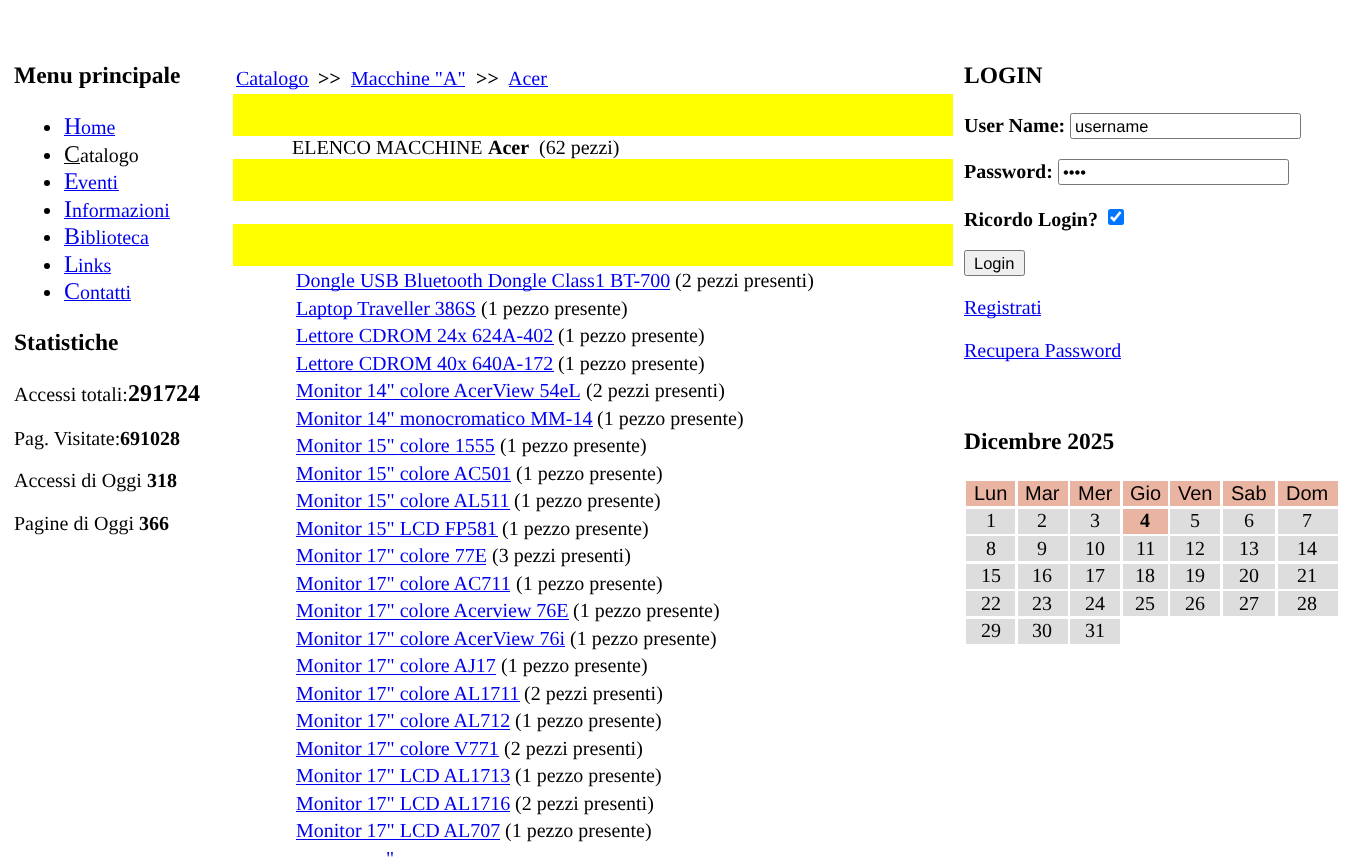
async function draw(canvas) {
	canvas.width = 1353;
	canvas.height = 859;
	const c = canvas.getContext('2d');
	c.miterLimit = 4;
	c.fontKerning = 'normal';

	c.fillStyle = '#fff';
	c.fillRect(0, 0, 1353, 859);
	c.font = 'bold 23.5px Liberation Serif';
	c.fillStyle = '#000';
	c.fillText('Menu principale', 14, 83);
	c.beginPath();
	c.arc(47, 128, 3, 0, 2 * Math.PI);
	c.fill();
	c.font = '24px Liberation Serif';
	c.fillStyle = '#00e';
	c.fillText('H', 64, 134);
	c.font = '20px Liberation Serif';
	c.fillText('ome', 81, 134);
	c.fillRect(64, 135, 51, 1);
	c.fillStyle = '#000';
	c.beginPath();
	c.arc(47, 156, 3, 0, 2 * Math.PI);
	c.fill();
	c.font = '24px Liberation Serif';
	c.fillText('C', 64, 162);
	c.fillRect(64, 163, 16, 1);
	c.font = '20px Liberation Serif';
	c.fillText('atalogo', 80, 162);
	c.beginPath();
	c.arc(47, 183, 3, 0, 2 * Math.PI);
	c.fill();
	c.font = '24px Liberation Serif';
	c.fillStyle = '#00e';
	c.fillText('E', 64, 189);
	c.font = '20px Liberation Serif';
	c.fillText('venti', 78, 189);
	c.fillRect(64, 190, 55, 1);
	c.fillStyle = '#000';
	c.beginPath();
	c.arc(47, 211, 3, 0, 2 * Math.PI);
	c.fill();
	c.font = '24px Liberation Serif';
	c.fillStyle = '#00e';
	c.fillText('I', 64, 217);
	c.font = '20px Liberation Serif';
	c.fillText('nformazioni', 72, 217);
	c.fillRect(64, 218, 106, 1);
	c.fillStyle = '#000';
	c.beginPath();
	c.arc(47, 238, 3, 0, 2 * Math.PI);
	c.fill();
	c.font = '24px Liberation Serif';
	c.fillStyle = '#00e';
	c.fillText('B', 64, 244);
	c.font = '20px Liberation Serif';
	c.fillText('iblioteca', 80, 244);
	c.fillRect(64, 245, 85, 1);
	c.fillStyle = '#000';
	c.beginPath();
	c.arc(47, 266, 3, 0, 2 * Math.PI);
	c.fill();
	c.font = '24px Liberation Serif';
	c.fillStyle = '#00e';
	c.fillText('L', 64, 272);
	c.font = '20px Liberation Serif';
	c.fillText('inks', 78, 272);
	c.fillRect(64, 273, 47, 1);
	c.fillStyle = '#000';
	c.beginPath();
	c.arc(47, 293, 3, 0, 2 * Math.PI);
	c.fill();
	c.font = '24px Liberation Serif';
	c.fillStyle = '#00e';
	c.fillText('C', 64, 299);
	c.font = '20px Liberation Serif';
	c.fillText('ontatti', 80, 299);
	c.fillRect(64, 300, 67, 1);
	c.font = 'bold 23.5px Liberation Serif';
	c.fillStyle = '#000';
	c.fillText('Statistiche', 14, 350);
	c.font = '20px Liberation Serif';
	c.fillText('Accessi totali:', 14, 401);
	c.font = 'bold 24px Liberation Serif';
	c.fillText('291724', 128, 401);
	c.font = '20px Liberation Serif';
	c.fillText('Pag. Visitate:', 14, 445);
	c.font = 'bold 20px Liberation Serif';
	c.fillText('691028', 120, 445);
	c.font = '20px Liberation Serif';
	c.fillText('Accessi di Oggi', 14, 487);
	c.font = 'bold 20px Liberation Serif';
	c.fillText('318', 147, 487);
	c.font = '20px Liberation Serif';
	c.fillText('Pagine di Oggi', 14, 530);
	c.font = 'bold 20px Liberation Serif';
	c.fillText('366', 139, 530);
	c.fillStyle = '#00e';
	c.fillRect(236, 86, 73, 1);
	c.font = '20px Liberation Serif';
	c.fillText('Catalogo', 236, 85);
	c.font = 'bold 20px Liberation Serif';
	c.fillStyle = '#000';
	c.fillText('>>', 318, 85);
	c.font = '20px Liberation Serif';
	c.fillStyle = '#00e';
	c.fillText('Macchine "A"', 351, 85);
	c.fillRect(351, 86, 114, 1);
	c.font = 'bold 20px Liberation Serif';
	c.fillStyle = '#000';
	c.fillText('>>', 476, 85);
	c.font = '20px Liberation Serif';
	c.fillStyle = '#00e';
	c.fillText('Acer', 508, 85);
	c.fillRect(509, 86, 39, 1);
	c.fillStyle = '#ff0';
	c.fillRect(233, 94, 720, 42);
	c.fillStyle = '#000';
	c.fillText('ELENCO MACCHINE', 292, 154);
	c.font = 'bold 20px Liberation Serif';
	c.fillText('Acer', 488, 154);
	c.font = '20px Liberation Serif';
	c.fillText('(62 pezzi)', 539, 154);
	for (const [x, y, w, h, color] of [
		[233, 159, 720, 42, '#ff0'],
		[233, 224, 720, 42, '#ff0'],
		[296, 289, 374, 1, '#00e'],
	]) {
		c.fillStyle = color;
		c.fillRect(x, y, w, h);
	}
	c.fillText('Dongle USB Bluetooth Dongle Class1 BT-700', 296, 287);
	c.fillStyle = '#000';
	c.fillText('(2 pezzi presenti)', 675, 287);
	c.fillStyle = '#00e';
	c.fillRect(296, 316, 180, 1);
	c.fillText('Laptop Traveller 386S', 296, 315);
	c.fillStyle = '#000';
	c.fillText('(1 pezzo presente)', 481, 315);
	c.fillStyle = '#00e';
	c.fillText('Lettore CDROM 24x 624A-402', 296, 342);
	c.fillRect(296, 344, 258, 1);
	c.fillStyle = '#000';
	c.fillText('(1 pezzo presente)', 558, 342);
	c.fillStyle = '#00e';
	c.fillText('Lettore CDROM 40x 640A-172', 296, 370);
	c.fillRect(296, 371, 258, 1);
	c.fillStyle = '#000';
	c.fillText('(1 pezzo presente)', 558, 370);
	c.fillStyle = '#00e';
	c.fillText('Monitor 14" colore AcerView 54eL', 296, 397);
	c.fillRect(296, 399, 284, 1);
	c.fillStyle = '#000';
	c.fillText('(2 pezzi presenti)', 586, 397);
	c.fillStyle = '#00e';
	c.fillText('Monitor 14" monocromatico MM-14', 296, 425);
	c.fillRect(296, 426, 297, 1);
	c.fillStyle = '#000';
	c.fillText('(1 pezzo presente)', 597, 425);
	c.fillStyle = '#00e';
	c.fillText('Monitor 15" colore 1555', 296, 452);
	c.fillRect(296, 454, 199, 1);
	c.fillStyle = '#000';
	c.fillText('(1 pezzo presente)', 500, 452);
	c.fillStyle = '#00e';
	c.fillText('Monitor 15" colore AC501', 296, 480);
	c.fillRect(296, 481, 215, 1);
	c.fillStyle = '#000';
	c.fillText('(1 pezzo presente)', 516, 480);
	c.fillStyle = '#00e';
	c.fillText('Monitor 15" colore AL511', 296, 507);
	c.fillRect(296, 509, 214, 1);
	c.fillStyle = '#000';
	c.fillText('(1 pezzo presente)', 514, 507);
	c.fillStyle = '#00e';
	c.fillText('Monitor 15" LCD FP581', 296, 535);
	c.fillRect(296, 536, 202, 1);
	c.fillStyle = '#000';
	c.fillText('(1 pezzo presente)', 502, 535);
	c.fillStyle = '#00e';
	c.fillText('Monitor 17" colore 77E', 296, 562);
	c.fillRect(296, 564, 190, 1);
	c.fillStyle = '#000';
	c.fillText('(3 pezzi presenti)', 492, 562);
	c.fillStyle = '#00e';
	c.fillText('Monitor 17" colore AC711', 296, 590);
	c.fillRect(296, 591, 214, 1);
	c.fillStyle = '#000';
	c.fillText('(1 pezzo presente)', 516, 590);
	c.fillStyle = '#00e';
	c.fillText('Monitor 17" colore Acerview 76E', 296, 617);
	c.fillRect(296, 619, 273, 1);
	c.fillStyle = '#000';
	c.fillText('(1 pezzo presente)', 573, 617);
	c.fillStyle = '#00e';
	c.fillText('Monitor 17" colore AcerView 76i', 296, 645);
	c.fillRect(296, 646, 269, 1);
	c.fillStyle = '#000';
	c.fillText('(1 pezzo presente)', 570, 645);
	c.fillStyle = '#00e';
	c.fillText('Monitor 17" colore AJ17', 296, 672);
	c.fillRect(296, 674, 200, 1);
	c.fillStyle = '#000';
	c.fillText('(1 pezzo presente)', 501, 672);
	c.fillStyle = '#00e';
	c.fillText('Monitor 17" colore AL1711', 296, 700);
	c.fillRect(296, 701, 224, 1);
	c.fillStyle = '#000';
	c.fillText('(2 pezzi presenti)', 524, 700);
	c.fillStyle = '#00e';
	c.fillText('Monitor 17" colore AL712', 296, 727);
	c.fillRect(296, 729, 214, 1);
	c.fillStyle = '#000';
	c.fillText('(1 pezzo presente)', 515, 727);
	c.fillStyle = '#00e';
	c.fillText('Monitor 17" colore V771', 296, 755);
	c.fillRect(296, 756, 203, 1);
	c.fillStyle = '#000';
	c.fillText('(2 pezzi presenti)', 504, 755);
	c.fillStyle = '#00e';
	c.fillText('Monitor 17" LCD AL1713', 296, 782);
	c.fillRect(296, 784, 214, 1);
	c.fillStyle = '#000';
	c.fillText('(1 pezzo presente)', 515, 782);
	c.fillStyle = '#00e';
	c.fillText('Monitor 17" LCD AL1716', 296, 810);
	c.fillRect(296, 811, 214, 1);
	c.fillStyle = '#000';
	c.fillText('(2 pezzi presenti)', 515, 810);
	c.fillStyle = '#00e';
	c.fillText('Monitor 17" LCD AL707', 296, 837);
	c.fillRect(296, 839, 204, 1);
	c.fillStyle = '#000';
	c.fillText('(1 pezzo presente)', 505, 837);
	c.fillStyle = '#00e';
	c.fillText('"', 386, 865);
	c.font = 'bold 23.5px Liberation Serif';
	c.fillStyle = '#000';
	c.fillText('LOGIN', 964, 83);
	c.font = 'bold 20px Liberation Serif';
	c.fillText('User Name:', 964, 132);
	c.beginPath();
	c.roundRect(1070.5, 113.5, 230, 25, 2);
	c.strokeStyle = '#767676';
	c.stroke();
	c.font = '16.5px Liberation Sans';
	c.fillText('username', 1075, 132);
	c.font = 'bold 20px Liberation Serif';
	c.fillText('Password:', 964, 178);
	c.beginPath();
	c.roundRect(1058.5, 159.5, 230, 25, 2);
	c.stroke();
	c.font = '16.5px Liberation Sans';
	c.fillText('••••', 1063, 178);
	c.font = 'bold 20px Liberation Serif';
	c.fillText('Ricordo Login?', 964, 226);
	c.fillStyle = '#0075ff';
	c.beginPath();
	c.roundRect(1108, 209, 16, 16, 2.5);
	c.fill();
	c.beginPath();
	c.moveTo(1111, 217);
	c.lineTo(1114, 220);
	c.lineTo(1120.5, 212);
	c.strokeStyle = '#fff';
	c.lineWidth = 2.6;
	c.stroke();
	c.fillStyle = '#efefef';
	c.beginPath();
	c.roundRect(964.5, 250.5, 60, 25, 2);
	c.fill();
	c.strokeStyle = '#767676';
	c.lineWidth = 1;
	c.stroke();
	c.font = '16.5px Liberation Sans';
	c.fillStyle = '#000';
	c.fillText('Login', 974, 269);
	c.fillStyle = '#00e';
	c.fillRect(964, 315, 77, 1);
	c.font = '20px Liberation Serif';
	c.fillText('Registrati', 964, 314);
	c.fillRect(964, 358, 157, 1);
	c.fillText('Recupera Password', 964, 357);
	c.font = 'bold 23.5px Liberation Serif';
	c.fillStyle = '#000';
	c.fillText('Dicembre 2025', 964, 449);
	c.fillStyle = '#e9b4a1';
	c.fillRect(966, 481, 49, 25);
	c.font = '20px Liberation Sans';
	c.fillStyle = '#000';
	c.fillText('Lun', 974, 500);
	c.fillStyle = '#e9b4a1';
	c.fillRect(1018, 481, 50, 25);
	c.fillStyle = '#000';
	c.fillText('Mar', 1025, 500);
	c.fillStyle = '#e9b4a1';
	c.fillRect(1070, 481, 50, 25);
	c.fillStyle = '#000';
	c.fillText('Mer', 1078, 500);
	c.fillStyle = '#e9b4a1';
	c.fillRect(1123, 481, 45, 25);
	c.fillStyle = '#000';
	c.fillText('Gio', 1130, 500);
	c.fillStyle = '#e9b4a1';
	c.fillRect(1170, 481, 50, 25);
	c.fillStyle = '#000';
	c.fillText('Ven', 1178, 500);
	c.fillStyle = '#e9b4a1';
	c.fillRect(1223, 481, 52, 25);
	c.fillStyle = '#000';
	c.fillText('Sab', 1231, 500);
	c.fillStyle = '#e9b4a1';
	c.fillRect(1278, 481, 60, 25);
	c.fillStyle = '#000';
	c.fillText('Dom', 1286, 500);
	c.fillStyle = '#ddd';
	c.fillRect(966, 509, 49, 25);
	c.font = '20px Liberation Serif';
	c.fillStyle = '#000';
	c.fillText('1', 986, 527);
	c.fillStyle = '#ddd';
	c.fillRect(1018, 509, 50, 25);
	c.fillStyle = '#000';
	c.fillText('2', 1037, 527);
	c.fillStyle = '#ddd';
	c.fillRect(1070, 509, 50, 25);
	c.fillStyle = '#000';
	c.fillText('3', 1090, 527);
	c.fillStyle = '#e9b4a1';
	c.fillRect(1123, 509, 45, 25);
	c.font = 'bold 20px Liberation Serif';
	c.fillStyle = '#000';
	c.fillText('4', 1140, 527);
	c.fillStyle = '#ddd';
	c.fillRect(1170, 509, 50, 25);
	c.font = '20px Liberation Serif';
	c.fillStyle = '#000';
	c.fillText('5', 1190, 527);
	c.fillStyle = '#ddd';
	c.fillRect(1223, 509, 52, 25);
	c.fillStyle = '#000';
	c.fillText('6', 1244, 527);
	c.fillStyle = '#ddd';
	c.fillRect(1278, 509, 60, 25);
	c.fillStyle = '#000';
	c.fillText('7', 1302, 527);
	c.fillStyle = '#ddd';
	c.fillRect(966, 536, 49, 25);
	c.fillStyle = '#000';
	c.fillText('8', 986, 555);
	c.fillStyle = '#ddd';
	c.fillRect(1018, 536, 50, 25);
	c.fillStyle = '#000';
	c.fillText('9', 1037, 555);
	c.fillStyle = '#ddd';
	c.fillRect(1070, 536, 50, 25);
	c.fillStyle = '#000';
	c.fillText('10', 1085, 555);
	c.fillStyle = '#ddd';
	c.fillRect(1123, 536, 45, 25);
	c.fillStyle = '#000';
	c.fillText('11', 1136, 555);
	c.fillStyle = '#ddd';
	c.fillRect(1170, 536, 50, 25);
	c.fillStyle = '#000';
	c.fillText('12', 1185, 555);
	c.fillStyle = '#ddd';
	c.fillRect(1223, 536, 52, 25);
	c.fillStyle = '#000';
	c.fillText('13', 1239, 555);
	c.fillStyle = '#ddd';
	c.fillRect(1278, 536, 60, 25);
	c.fillStyle = '#000';
	c.fillText('14', 1297, 555);
	c.fillStyle = '#ddd';
	c.fillRect(966, 564, 49, 25);
	c.fillStyle = '#000';
	c.fillText('15', 981, 582);
	c.fillStyle = '#ddd';
	c.fillRect(1018, 564, 50, 25);
	c.fillStyle = '#000';
	c.fillText('16', 1032, 582);
	c.fillStyle = '#ddd';
	c.fillRect(1070, 564, 50, 25);
	c.fillStyle = '#000';
	c.fillText('17', 1085, 582);
	c.fillStyle = '#ddd';
	c.fillRect(1123, 564, 45, 25);
	c.fillStyle = '#000';
	c.fillText('18', 1135, 582);
	c.fillStyle = '#ddd';
	c.fillRect(1170, 564, 50, 25);
	c.fillStyle = '#000';
	c.fillText('19', 1185, 582);
	c.fillStyle = '#ddd';
	c.fillRect(1223, 564, 52, 25);
	c.fillStyle = '#000';
	c.fillText('20', 1239, 582);
	c.fillStyle = '#ddd';
	c.fillRect(1278, 564, 60, 25);
	c.fillStyle = '#000';
	c.fillText('21', 1297, 582);
	c.fillStyle = '#ddd';
	c.fillRect(966, 591, 49, 25);
	c.fillStyle = '#000';
	c.fillText('22', 981, 610);
	c.fillStyle = '#ddd';
	c.fillRect(1018, 591, 50, 25);
	c.fillStyle = '#000';
	c.fillText('23', 1032, 610);
	c.fillStyle = '#ddd';
	c.fillRect(1070, 591, 50, 25);
	c.fillStyle = '#000';
	c.fillText('24', 1085, 610);
	c.fillStyle = '#ddd';
	c.fillRect(1123, 591, 45, 25);
	c.fillStyle = '#000';
	c.fillText('25', 1135, 610);
	c.fillStyle = '#ddd';
	c.fillRect(1170, 591, 50, 25);
	c.fillStyle = '#000';
	c.fillText('26', 1185, 610);
	c.fillStyle = '#ddd';
	c.fillRect(1223, 591, 52, 25);
	c.fillStyle = '#000';
	c.fillText('27', 1239, 610);
	c.fillStyle = '#ddd';
	c.fillRect(1278, 591, 60, 25);
	c.fillStyle = '#000';
	c.fillText('28', 1297, 610);
	c.fillStyle = '#ddd';
	c.fillRect(966, 619, 49, 25);
	c.fillStyle = '#000';
	c.fillText('29', 981, 637);
	c.fillStyle = '#ddd';
	c.fillRect(1018, 619, 50, 25);
	c.fillStyle = '#000';
	c.fillText('30', 1032, 637);
	c.fillStyle = '#ddd';
	c.fillRect(1070, 619, 50, 25);
	c.fillStyle = '#000';
	c.fillText('31', 1085, 637);
}

draw(document.querySelector('canvas'));
